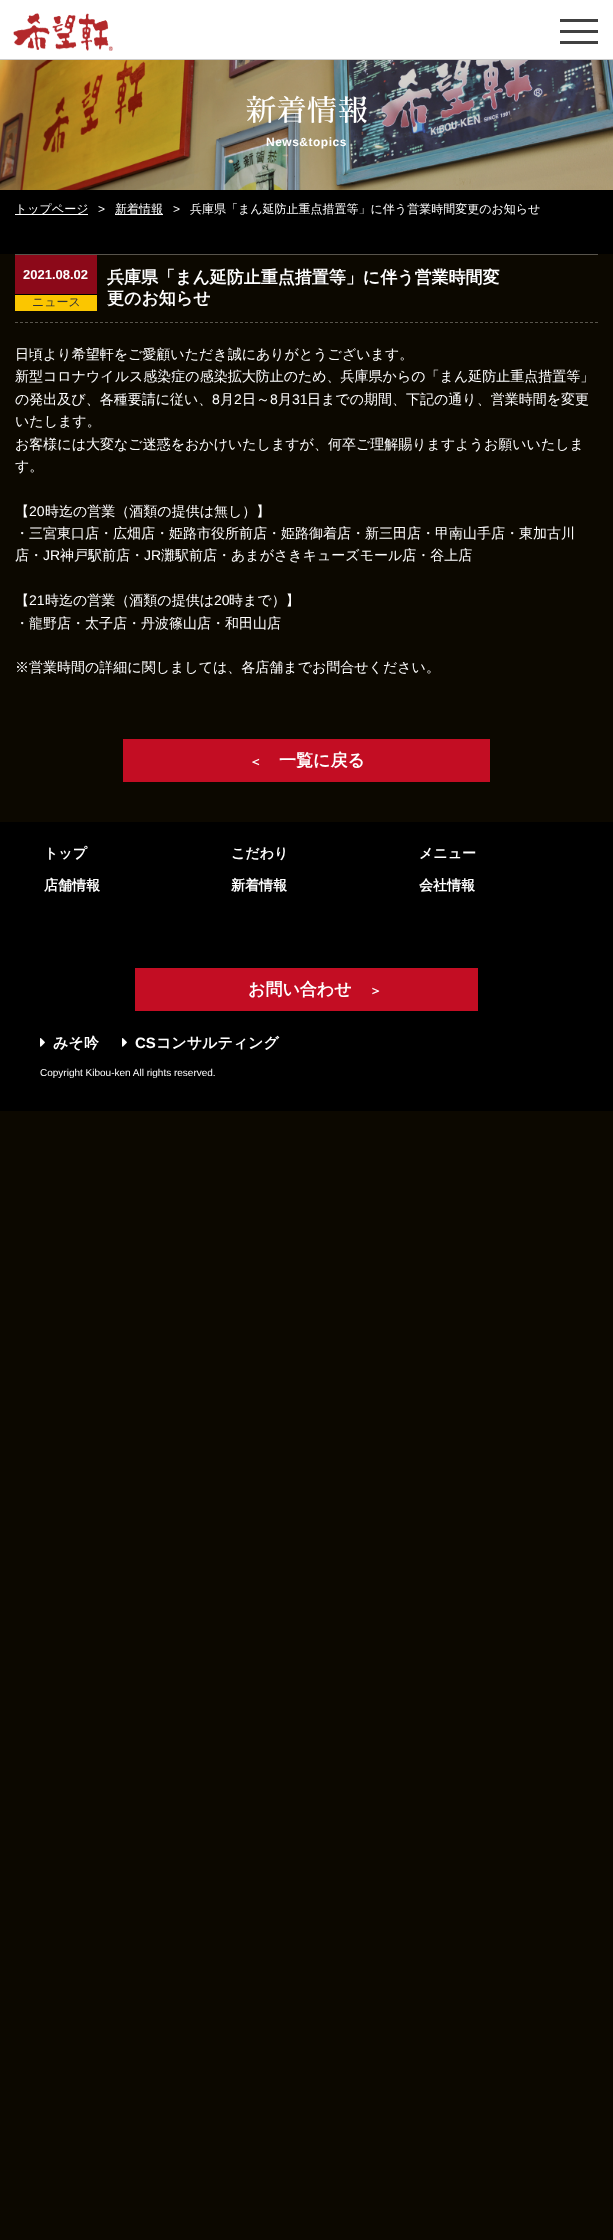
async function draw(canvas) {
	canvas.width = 613;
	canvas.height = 2240;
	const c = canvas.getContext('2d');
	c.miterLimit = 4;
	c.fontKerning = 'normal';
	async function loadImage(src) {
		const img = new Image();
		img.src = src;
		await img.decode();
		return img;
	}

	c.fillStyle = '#0c0800';
	c.fillRect(0, 0, 613, 2240);
	c.fillStyle = '#fff';
	c.fillRect(0, 0, 613, 59);
	c.fillStyle = '#ccc';
	c.fillRect(0, 59, 613, 1);
	c.drawImage(await loadImage('img1.png'), 13, 13, 100, 38);
	for (const [x, y, w, h, color] of [
		[560, 30, 38, 3, '#404040'],
		[560, 19, 38, 3, '#404040'],
		[560, 41, 38, 3, '#404040'],
	]) {
		c.fillStyle = color;
		c.fillRect(x, y, w, h);
	}
	c.drawImage(await loadImage('img2.png'), 0, 60, 613, 130);
	c.letterSpacing = '0.5px';
	c.font = '30px Sawarabi Mincho';
	c.fillStyle = '#fff';
	c.fillText('新着情報', 246, 121);
	c.font = 'bold 12px Liberation Sans';
	c.fillText('News&topics', 266, 146);
	c.fillStyle = '#000';
	c.fillRect(0, 190, 613, 64);
	c.fillStyle = '#fff';
	c.fillRect(15, 214, 73, 1);
	c.letterSpacing = '0px';
	c.font = '500 12px WenQuanYi Zen Hei';
	c.fillText('トップページ', 15, 213);
	c.font = '12px Liberation Sans';
	c.fillText('>', 98, 213);
	c.fillRect(115, 214, 48, 1);
	c.font = '500 12px WenQuanYi Zen Hei';
	c.fillText('新着情報', 115, 213);
	c.font = '12px Liberation Sans';
	c.fillText('>', 173, 213);
	c.font = '500 12px WenQuanYi Zen Hei';
	c.fillText('兵庫県「まん延防止重点措置等」に伴う営業時間変更のお知らせ', 190, 213);
	c.fillStyle = '#58544c';
	c.fillRect(15, 254, 583, 1);
	c.beginPath();
	c.moveTo(15, 322.5);
	c.lineTo(598, 322.5);
	c.strokeStyle = '#58544c';
	c.setLineDash([3, 2]);
	c.stroke();
	c.fillStyle = '#8c0919';
	c.fillRect(15, 255, 82, 39);
	c.font = 'bold 13px Liberation Sans';
	c.fillStyle = '#fff';
	c.fillText('2021.08.02', 23, 279);
	c.fillStyle = '#fbc600';
	c.fillRect(15, 295, 82, 16);
	c.fillStyle = '#000';
	c.fillRect(15, 294, 82, 1);
	c.font = '500 12px WenQuanYi Zen Hei';
	c.fillStyle = '#333';
	c.fillText('ニュース', 32, 306);
	c.font = 'bold 17px WenQuanYi Zen Hei';
	c.fillStyle = '#fff';
	c.fillText('兵庫県「まん延防止重点措置等」に伴う営業時間変', 107, 283);
	c.fillText('更のお知らせ', 107, 304);
	c.font = '500 14px WenQuanYi Zen Hei';
	for (const [text, x, y] of [
		['日頃より希望軒をご愛顧いただき誠にありがとうございます。', 15, 359],
		['新型コロナウイルス感染症の感染拡大防止のため、兵庫県からの「まん延防止重点措置等」', 15, 381],
		['の発出及び、各種要請に従い、', 15, 404],
	]) {
		c.fillText(text, x, y);
	}
	c.font = '14px Liberation Sans';
	c.fillText('8', 212, 404);
	c.font = '500 14px WenQuanYi Zen Hei';
	c.fillText('月', 220, 404);
	c.font = '14px Liberation Sans';
	c.fillText('2', 234, 404);
	c.font = '500 14px WenQuanYi Zen Hei';
	c.fillText('日～', 242, 404);
	c.font = '14px Liberation Sans';
	c.fillText('8', 270, 404);
	c.font = '500 14px WenQuanYi Zen Hei';
	c.fillText('月', 278, 404);
	c.font = '14px Liberation Sans';
	c.fillText('31', 292, 404);
	c.font = '500 14px WenQuanYi Zen Hei';
	for (const [text, x, y] of [
		['日までの期間、下記の通り、営業時間を変更', 307, 404],
		['いたします。', 15, 426],
		['お客様には大変なご迷惑をおかけいたしますが、何卒ご理解賜りますようお願いいたしま', 15, 449],
		['す。', 15, 471],
		['【', 15, 516],
	]) {
		c.fillText(text, x, y);
	}
	c.font = '14px Liberation Sans';
	c.fillText('20', 29, 516);
	c.font = '500 14px WenQuanYi Zen Hei';
	for (const [text, x, y] of [
		['時迄の営業（酒類の提供は無し）】', 45, 516],
		['・三宮東口店・広畑店・姫路市役所前店・姫路御着店・新三田店・甲南山手店・東加古川', 15, 538],
		['店・', 15, 560],
	]) {
		c.fillText(text, x, y);
	}
	c.font = '14px Liberation Sans';
	c.fillText('JR', 43, 560);
	c.font = '500 14px WenQuanYi Zen Hei';
	c.fillText('神戸駅前店・', 60, 560);
	c.font = '14px Liberation Sans';
	c.fillText('JR', 144, 560);
	c.font = '500 14px WenQuanYi Zen Hei';
	c.fillText('灘駅前店・あまがさきキューズモール店・谷上店', 161, 560);
	c.fillText('【', 15, 605);
	c.font = '14px Liberation Sans';
	c.fillText('21', 29, 605);
	c.font = '500 14px WenQuanYi Zen Hei';
	c.fillText('時迄の営業（酒類の提供は', 45, 605);
	c.font = '14px Liberation Sans';
	c.fillText('20', 214, 605);
	c.font = '500 14px WenQuanYi Zen Hei';
	for (const [text, x, y] of [
		['時まで）】', 229, 605],
		['・龍野店・太子店・丹波篠山店・和田山店', 15, 628],
		['※営業時間の詳細に関しましては、各店舗までお問合せください。', 15, 672],
	]) {
		c.fillText(text, x, y);
	}
	c.fillStyle = '#c30d23';
	c.fillRect(123, 739, 367, 43);
	c.font = 'bold 13px WenQuanYi Zen Hei';
	c.fillStyle = '#fff';
	c.fillText('＜', 249, 766);
	c.font = 'bold 17px WenQuanYi Zen Hei';
	c.fillText('一覧に戻る', 279, 766);
	c.fillStyle = '#000';
	c.fillRect(0, 822, 613, 289);
	c.font = 'bold 14px WenQuanYi Zen Hei';
	c.fillStyle = '#fff';
	for (const [text, x, y] of [
		['トップ', 44, 858],
		['こだわり', 231, 858],
		['メニュー', 419, 858],
		['店舗情報', 44, 890],
		['新着情報', 231, 890],
		['会社情報', 419, 890],
	]) {
		c.fillText(text, x, y);
	}
	c.fillStyle = '#c30d23';
	c.fillRect(135, 968, 343, 43);
	c.font = 'bold 17px WenQuanYi Zen Hei';
	c.fillStyle = '#fff';
	c.fillText('お問い合わせ', 248, 995);
	c.font = 'bold 13px WenQuanYi Zen Hei';
	c.fillText('＞', 369, 995);
	c.drawImage(await loadImage('img3.png'), 40, 1038, 5, 9);
	c.font = 'bold 15px WenQuanYi Zen Hei';
	c.fillText('みそ吟', 53, 1048);
	c.drawImage(await loadImage('img3.png'), 122, 1038, 5, 9);
	c.font = 'bold 15px Liberation Sans';
	c.fillText('CS', 135, 1048);
	c.font = 'bold 15px WenQuanYi Zen Hei';
	c.fillText('コンサルティング', 156, 1048);
	c.font = '10px Liberation Sans';
	c.fillText('Copyright Kibou-ken All rights reserved.', 40, 1076);
}

draw(document.querySelector('canvas'));
